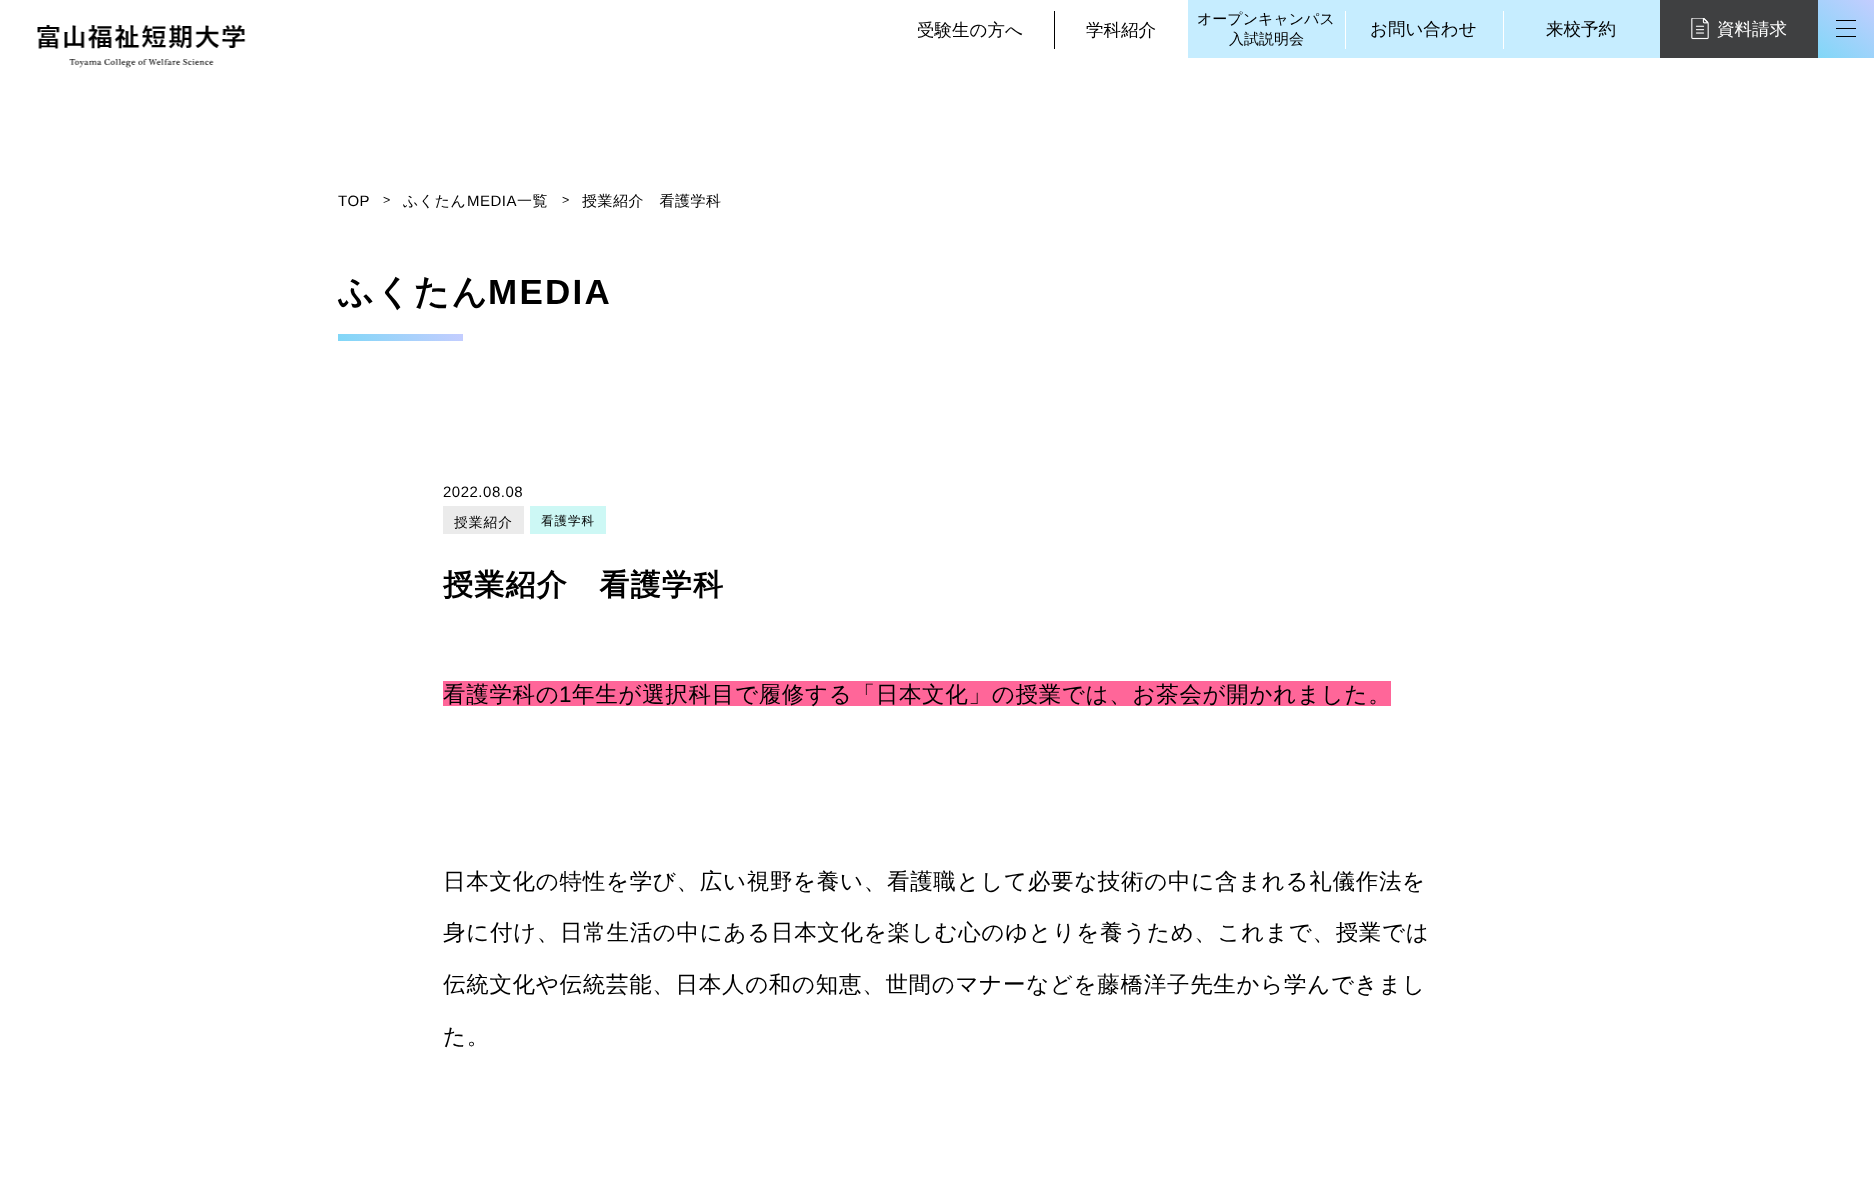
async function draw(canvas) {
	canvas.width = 1874;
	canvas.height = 1178;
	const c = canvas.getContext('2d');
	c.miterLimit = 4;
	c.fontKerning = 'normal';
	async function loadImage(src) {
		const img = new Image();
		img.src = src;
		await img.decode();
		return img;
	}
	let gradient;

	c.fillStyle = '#fff';
	c.fillRect(0, 0, 1874, 1178);
	c.drawImage(await loadImage('img1.png'), 37, 25, 209, 43);
	c.font = '500 17.5px WenQuanYi Zen Hei';
	c.fillStyle = '#000';
	c.fillText('受験生の方へ', 917, 36);
	c.fillRect(1054, 11, 1, 38);
	c.fillText('学科紹介', 1086, 36);
	c.fillStyle = '#c6edff';
	c.fillRect(1188, 0, 472, 58);
	c.font = '500 15px WenQuanYi Zen Hei';
	c.fillStyle = '#000';
	c.fillText('オープンキャンパス', 1197, 24);
	c.fillText('入試説明会', 1229, 44);
	c.fillStyle = '#fff';
	c.fillRect(1345, 11, 1, 38);
	c.font = '500 17.5px WenQuanYi Zen Hei';
	c.fillStyle = '#000';
	c.fillText('お問い合わせ', 1370, 35);
	c.fillStyle = '#fff';
	c.fillRect(1503, 11, 1, 38);
	c.fillStyle = '#000';
	c.fillText('来校予約', 1546, 35);
	c.fillStyle = '#3f4041';
	c.fillRect(1660, 0, 158, 58);
	c.drawImage(await loadImage('img2.png'), 1691, 18, 18, 22);
	c.fillStyle = '#fff';
	c.fillText('資料請求', 1717, 35);
	gradient = c.createLinearGradient(1870, -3.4, 1822, 61);
	gradient.addColorStop(0, '#c4cdff');
	gradient.addColorStop(1, '#80d7f7');
	c.fillStyle = gradient;
	c.fillRect(1818, 0, 56, 58);
	for (const [x, y, w, h, color] of [
		[1836, 20, 20, 1, '#000'],
		[1836, 28, 20, 1, '#000'],
		[1836, 36, 20, 1, '#000'],
	]) {
		c.fillStyle = color;
		c.fillRect(x, y, w, h);
	}
	c.letterSpacing = '0.5px';
	c.font = '15px Liberation Sans';
	c.fillText('TOP', 338, 206);
	c.font = '12.5px Liberation Sans';
	c.fillText('>', 383, 204);
	c.font = '500 15px WenQuanYi Zen Hei';
	c.fillText('ふくたん', 403, 206);
	c.font = '15px Liberation Sans';
	c.fillText('MEDIA', 467, 206);
	c.font = '500 15px WenQuanYi Zen Hei';
	c.fillText('一覧', 517, 206);
	c.font = '12.5px Liberation Sans';
	c.fillText('>', 562, 204);
	c.font = '500 15px WenQuanYi Zen Hei';
	c.fillText('授業紹介　看護学科', 582, 206);
	c.letterSpacing = '2px';
	c.font = 'bold 35px WenQuanYi Zen Hei';
	c.fillText('ふくたん', 338, 304);
	c.letterSpacing = '2.25px';
	c.font = 'bold 35px Liberation Sans';
	c.fillText('MEDIA', 488, 304);
	gradient = c.createLinearGradient(456, 316, 344, 359);
	gradient.addColorStop(0, '#c4cdff');
	gradient.addColorStop(1, '#80d7f7');
	c.fillStyle = gradient;
	c.fillRect(338, 334, 125, 7);
	c.letterSpacing = '0.5px';
	c.font = '15px Liberation Sans';
	c.fillStyle = '#000';
	c.fillText('2022.08.08', 443, 497);
	c.fillStyle = '#ebebeb';
	c.fillRect(443, 506, 81, 28);
	c.letterSpacing = '1px';
	c.font = '500 13.75px WenQuanYi Zen Hei';
	c.fillStyle = '#000';
	c.fillText('授業紹介', 454, 527);
	c.fillStyle = '#cdf8f5';
	c.fillRect(530, 506, 76, 28);
	c.font = '500 12.5px WenQuanYi Zen Hei';
	c.fillStyle = '#000';
	c.fillText('看護学科', 541, 525);
	c.letterSpacing = '1.25px';
	c.font = 'bold 30px WenQuanYi Zen Hei';
	c.fillText('授業紹介　看護学科', 443, 595);
	c.fillStyle = '#f69';
	c.fillRect(443, 681, 948, 25);
	c.letterSpacing = '0.7px';
	c.font = '500 22.5px WenQuanYi Zen Hei';
	c.fillStyle = '#000';
	c.fillText('看護学科の', 443, 702);
	c.font = '22.5px Liberation Sans';
	c.fillText('1', 559, 702);
	c.font = '500 22.5px WenQuanYi Zen Hei';
	for (const [text, x, y] of [
		['年生が選択科目で履修する「日本文化」の授業では、お茶会が開かれました。', 572, 702],
		['日本文化の特性を学び、広い視野を養い、看護職として必要な技術の中に含まれる礼儀作法を', 443, 889],
		['身に付け、日常生活の中にある日本文化を楽しむ心のゆとりを養うため、これまで、授業では', 443, 940],
		['伝統文化や伝統芸能、日本人の和の知恵、世間のマナーなどを藤橋洋子先生から学んできまし', 443, 992],
		['た。', 443, 1044],
	]) {
		c.fillText(text, x, y);
	}
}

draw(document.querySelector('canvas'));
